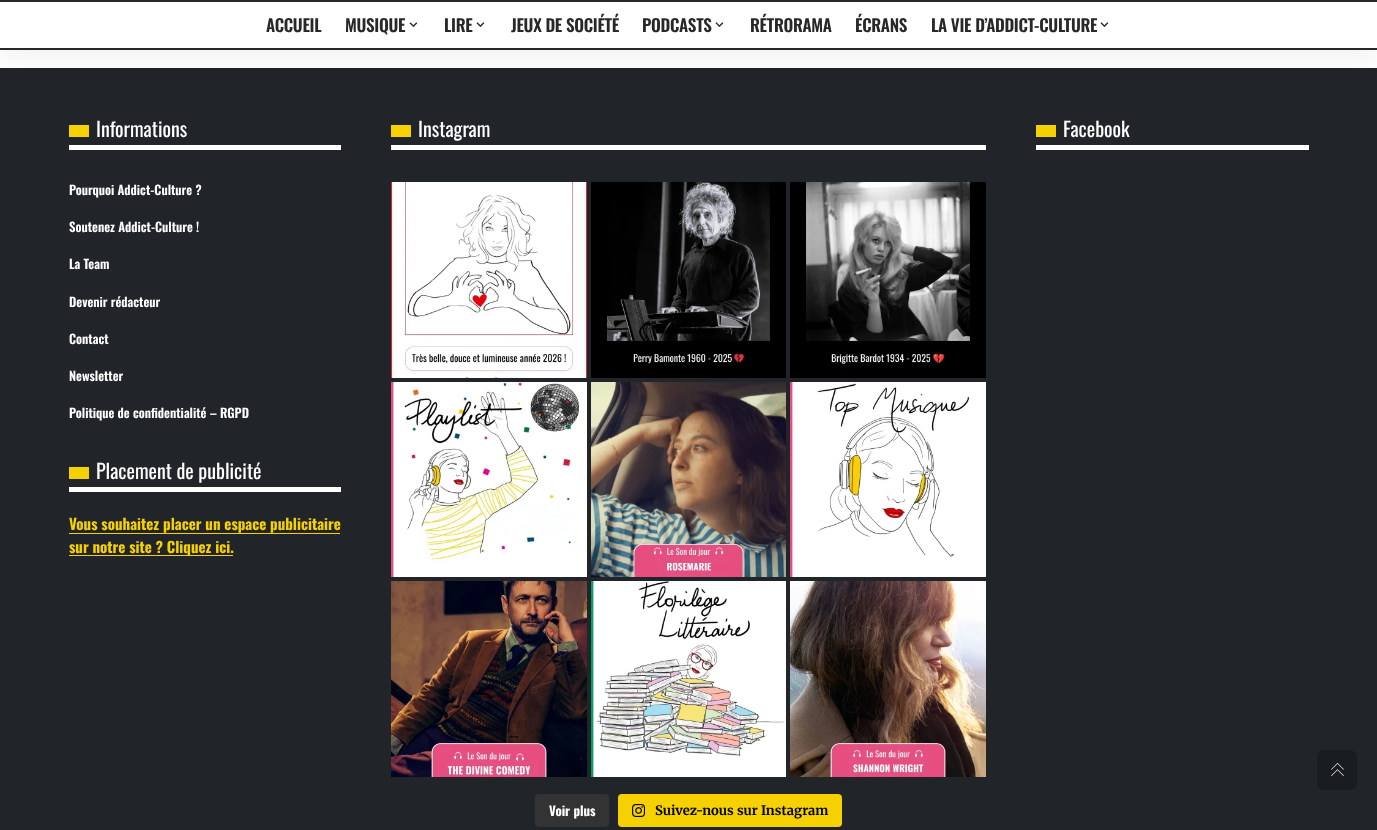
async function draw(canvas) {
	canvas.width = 1377;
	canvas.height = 830;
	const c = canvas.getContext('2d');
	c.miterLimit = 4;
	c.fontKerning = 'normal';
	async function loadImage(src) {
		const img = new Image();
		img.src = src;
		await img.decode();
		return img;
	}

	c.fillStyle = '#fff';
	c.fillRect(0, 0, 1377, 830);
	c.fillStyle = '#212428';
	c.fillRect(0, 68, 1377, 762);
	c.fillStyle = '#00000012';
	c.filter = 'blur(15px)';
	c.beginPath();
	c.rect(0, 4, 1377, 50);
	c.fill();
	c.filter = 'none';
	c.fillStyle = '#fff';
	c.fillRect(0, 2, 1377, 46);
	c.fillStyle = '#282828';
	c.fillRect(0, 0, 1377, 2);
	c.letterSpacing = '-0.3px';
	c.font = '600 17px Oswald';
	c.fillText('ACCUEIL', 266, 32);
	c.fillText('MUSIQUE', 345, 32);
	c.drawImage(await loadImage('img1.png'), 409, 22, 9, 5);
	c.fillText('LIRE', 444, 32);
	c.drawImage(await loadImage('img1.png'), 476, 22, 9, 5);
	c.fillText('JEUX DE SOCIÉTÉ', 511, 32);
	c.fillText('PODCASTS', 642, 32);
	c.drawImage(await loadImage('img1.png'), 715, 22, 9, 5);
	for (const [text, x, y] of [
		['RÉTRORAMA', 750, 32],
		['ÉCRANS', 855, 32],
		['LA VIE D’ADDICT-CULTURE', 931, 32],
	]) {
		c.fillText(text, x, y);
	}
	c.drawImage(await loadImage('img1.png'), 1100, 22, 9, 5);
	for (const [x, y, w, h, color] of [
		[0, 48, 1377, 2, '#282828'],
		[69, 145, 272, 5, '#fff'],
		[69, 125, 20, 12, '#f5d100'],
	]) {
		c.fillStyle = color;
		c.fillRect(x, y, w, h);
	}
	c.letterSpacing = '0px';
	c.font = '20px Oswald';
	c.fillStyle = '#fff';
	c.fillText('Informations', 96, 137);
	c.font = '600 12.75px Oswald';
	for (const [text, x, y] of [
		['Pourquoi Addict-Culture ?', 69, 195],
		['Soutenez Addict-Culture !', 69, 232],
		['La Team', 69, 269],
		['Devenir rédacteur', 69, 307],
		['Contact', 69, 344],
		['Newsletter', 69, 381],
		['Politique de confidentialité – RGPD', 69, 418],
	]) {
		c.fillText(text, x, y);
	}
	c.fillRect(69, 487, 272, 5);
	c.fillStyle = '#f5d100';
	c.fillRect(69, 467, 20, 12);
	c.font = '20px Oswald';
	c.fillStyle = '#fff';
	c.fillText('Placement de publicité', 96, 479);
	c.font = 'bold 15px Oswald';
	c.fillStyle = '#f5d100';
	c.fillText('Vous souhaitez placer un espace publicitaire', 69, 530);
	c.fillRect(69, 533, 271, 1);
	c.fillRect(69, 555, 164, 1);
	c.fillText('sur notre site ? Cliquez ici.', 69, 553);
	c.fillStyle = '#fff';
	c.fillRect(391, 145, 595, 5);
	c.fillStyle = '#f5d100';
	c.fillRect(391, 125, 20, 12);
	c.font = '20px Oswald';
	c.fillStyle = '#fff';
	c.fillText('Instagram', 418, 137);
	c.drawImage(await loadImage('img2.png'), 391, 182, 196, 196);
	c.drawImage(await loadImage('img3.png'), 591, 182, 195, 196);
	c.drawImage(await loadImage('img4.png'), 790, 182, 196, 196);
	c.drawImage(await loadImage('img5.png'), 391, 382, 196, 195);
	c.drawImage(await loadImage('img6.png'), 591, 382, 195, 195);
	c.drawImage(await loadImage('img7.png'), 790, 382, 196, 195);
	c.drawImage(await loadImage('img8.png'), 391, 581, 196, 196);
	c.drawImage(await loadImage('img9.png'), 591, 581, 195, 196);
	c.drawImage(await loadImage('img10.png'), 790, 581, 196, 196);
	c.fillStyle = '#333';
	c.beginPath();
	c.roundRect(535, 794, 74, 33, 4);
	c.fill();
	c.font = 'bold 13px Oswald';
	c.fillStyle = '#fff';
	c.fillText('Voir plus', 549, 816);
	c.fillStyle = '#f5d100';
	c.beginPath();
	c.roundRect(618, 794, 224, 33, 4);
	c.fill();
	c.drawImage(await loadImage('img11.png'), 632, 804, 13, 13);
	c.font = 'bold 13px Merriweather';
	c.fillStyle = '#000';
	c.fillText('Suivez-nous sur Instagram', 655, 815);
	c.fillStyle = '#fff';
	c.fillRect(1036, 145, 273, 5);
	c.fillStyle = '#f5d100';
	c.fillRect(1036, 125, 20, 12);
	c.font = '20px Oswald';
	c.fillStyle = '#fff';
	c.fillText('Facebook', 1063, 137);
	c.fillStyle = '#191c20';
	c.beginPath();
	c.roundRect(1317, 750, 40, 40, 7);
	c.fill();
	c.drawImage(await loadImage('img12.png'), 1331, 763, 13, 13);
}

draw(document.querySelector('canvas'));
